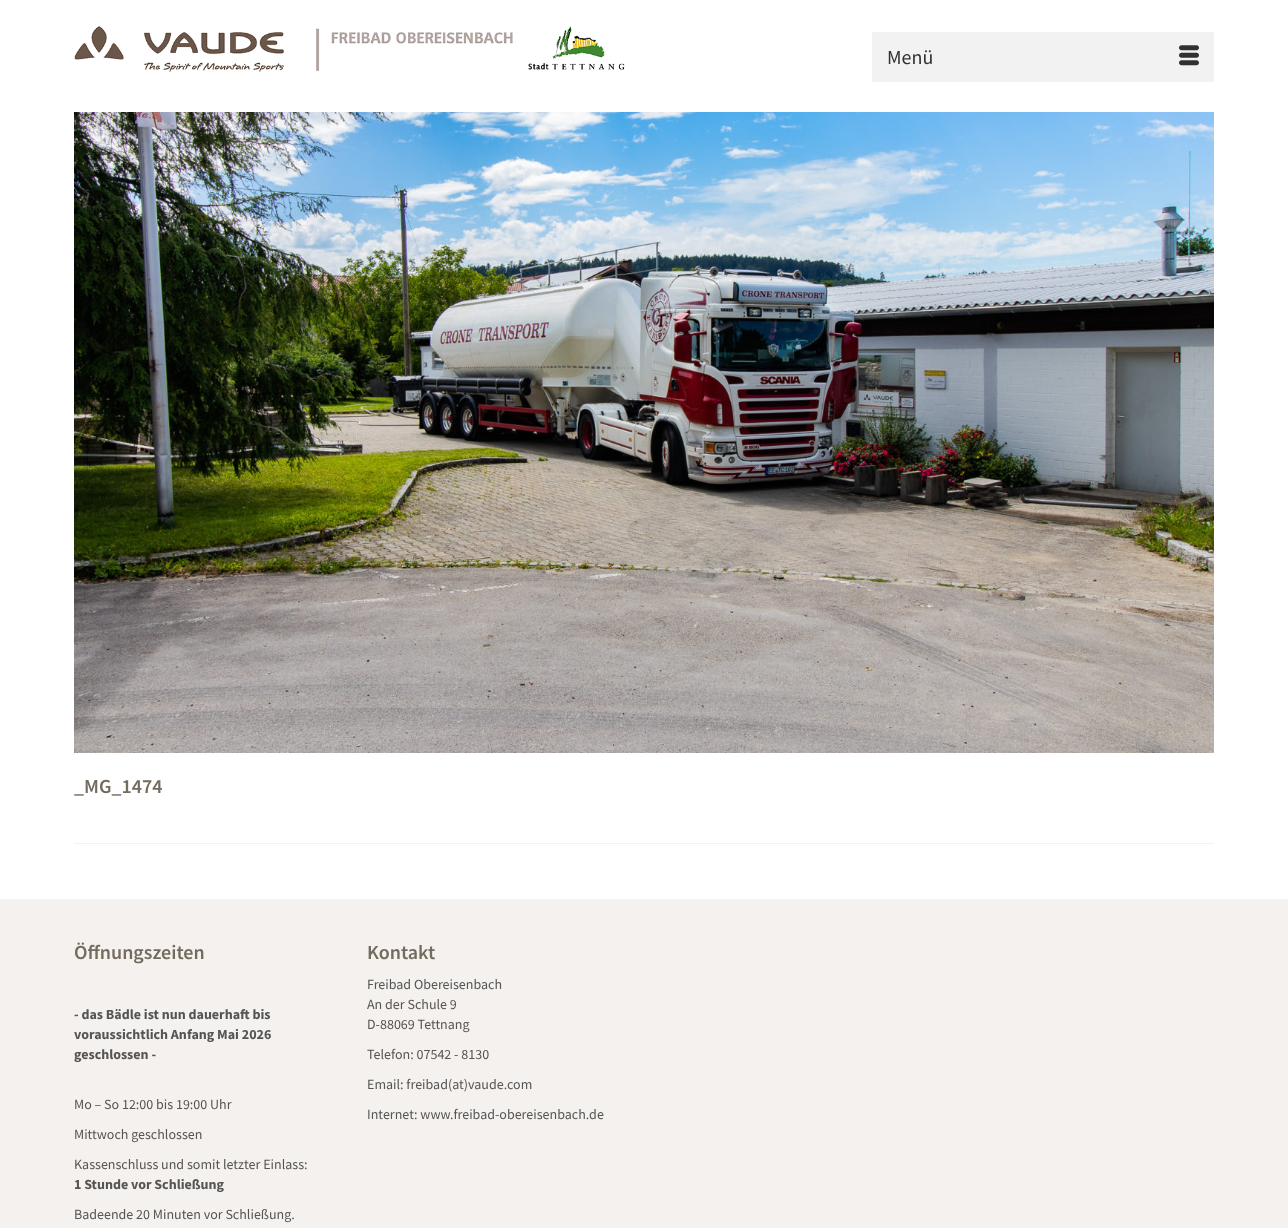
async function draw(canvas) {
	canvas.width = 1288;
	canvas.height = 1228;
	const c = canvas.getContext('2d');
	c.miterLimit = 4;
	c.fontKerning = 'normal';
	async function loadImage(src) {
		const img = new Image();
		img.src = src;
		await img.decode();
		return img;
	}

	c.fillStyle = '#fff';
	c.fillRect(0, 0, 1288, 1228);
	c.drawImage(await loadImage('img1.png'), 74, 26, 551, 46);
	c.fillStyle = '#f2f2f2';
	c.fillRect(872, 32, 342, 50);
	c.font = '20px Source Sans Pro';
	c.fillStyle = '#303030';
	c.fillText('Menü', 887, 64);
	c.drawImage(await loadImage('img2.png'), 1179, 45, 20, 21);
	c.drawImage(await loadImage('img3.png'), 74, 112, 1140, 641);
	c.font = '600 20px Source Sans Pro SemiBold';
	c.fillStyle = '#726b5e';
	c.fillText('_MG_1474', 74, 793);
	c.fillStyle = '#f2f2f2';
	c.fillRect(74, 843, 1140, 1);
	c.fillStyle = '#f4f1ee';
	c.fillRect(0, 899, 1288, 329);
	c.fillStyle = '#726b5e';
	c.fillText('Öffnungszeiten', 74, 959);
	c.font = 'bold 14px Source Sans Pro';
	c.fillStyle = '#555';
	for (const [text, x, y] of [
		['- das Bädle ist nun dauerhaft bis', 74, 1019],
		['voraussichtlich Anfang Mai 2026', 74, 1039],
		['geschlossen -', 74, 1059],
	]) {
		c.fillText(text, x, y);
	}
	c.font = '14px Source Sans Pro';
	for (const [text, x, y] of [
		['Mo – So 12:00 bis 19:00 Uhr', 74, 1109],
		['Mittwoch geschlossen', 74, 1139],
		['Kassenschluss und somit letzter Einlass:', 74, 1169],
	]) {
		c.fillText(text, x, y);
	}
	c.font = 'bold 14px Source Sans Pro';
	c.fillText('1 Stunde vor Schließung', 74, 1189);
	c.font = '14px Source Sans Pro';
	c.fillText('Badeende 20 Minuten vor Schließung.', 74, 1219);
	c.font = '600 20px Source Sans Pro SemiBold';
	c.fillStyle = '#726b5e';
	c.fillText('Kontakt', 367, 959);
	c.font = '14px Source Sans Pro';
	c.fillStyle = '#555';
	for (const [text, x, y] of [
		['Freibad Obereisenbach', 367, 989],
		['An der Schule 9', 367, 1009],
		['D-88069 Tettnang', 367, 1029],
		['Telefon: 07542 - 8130', 367, 1059],
		['Email: freibad(at)vaude.com', 367, 1089],
		['Internet: www.freibad-obereisenbach.de', 367, 1119],
	]) {
		c.fillText(text, x, y);
	}
}

draw(document.querySelector('canvas'));
